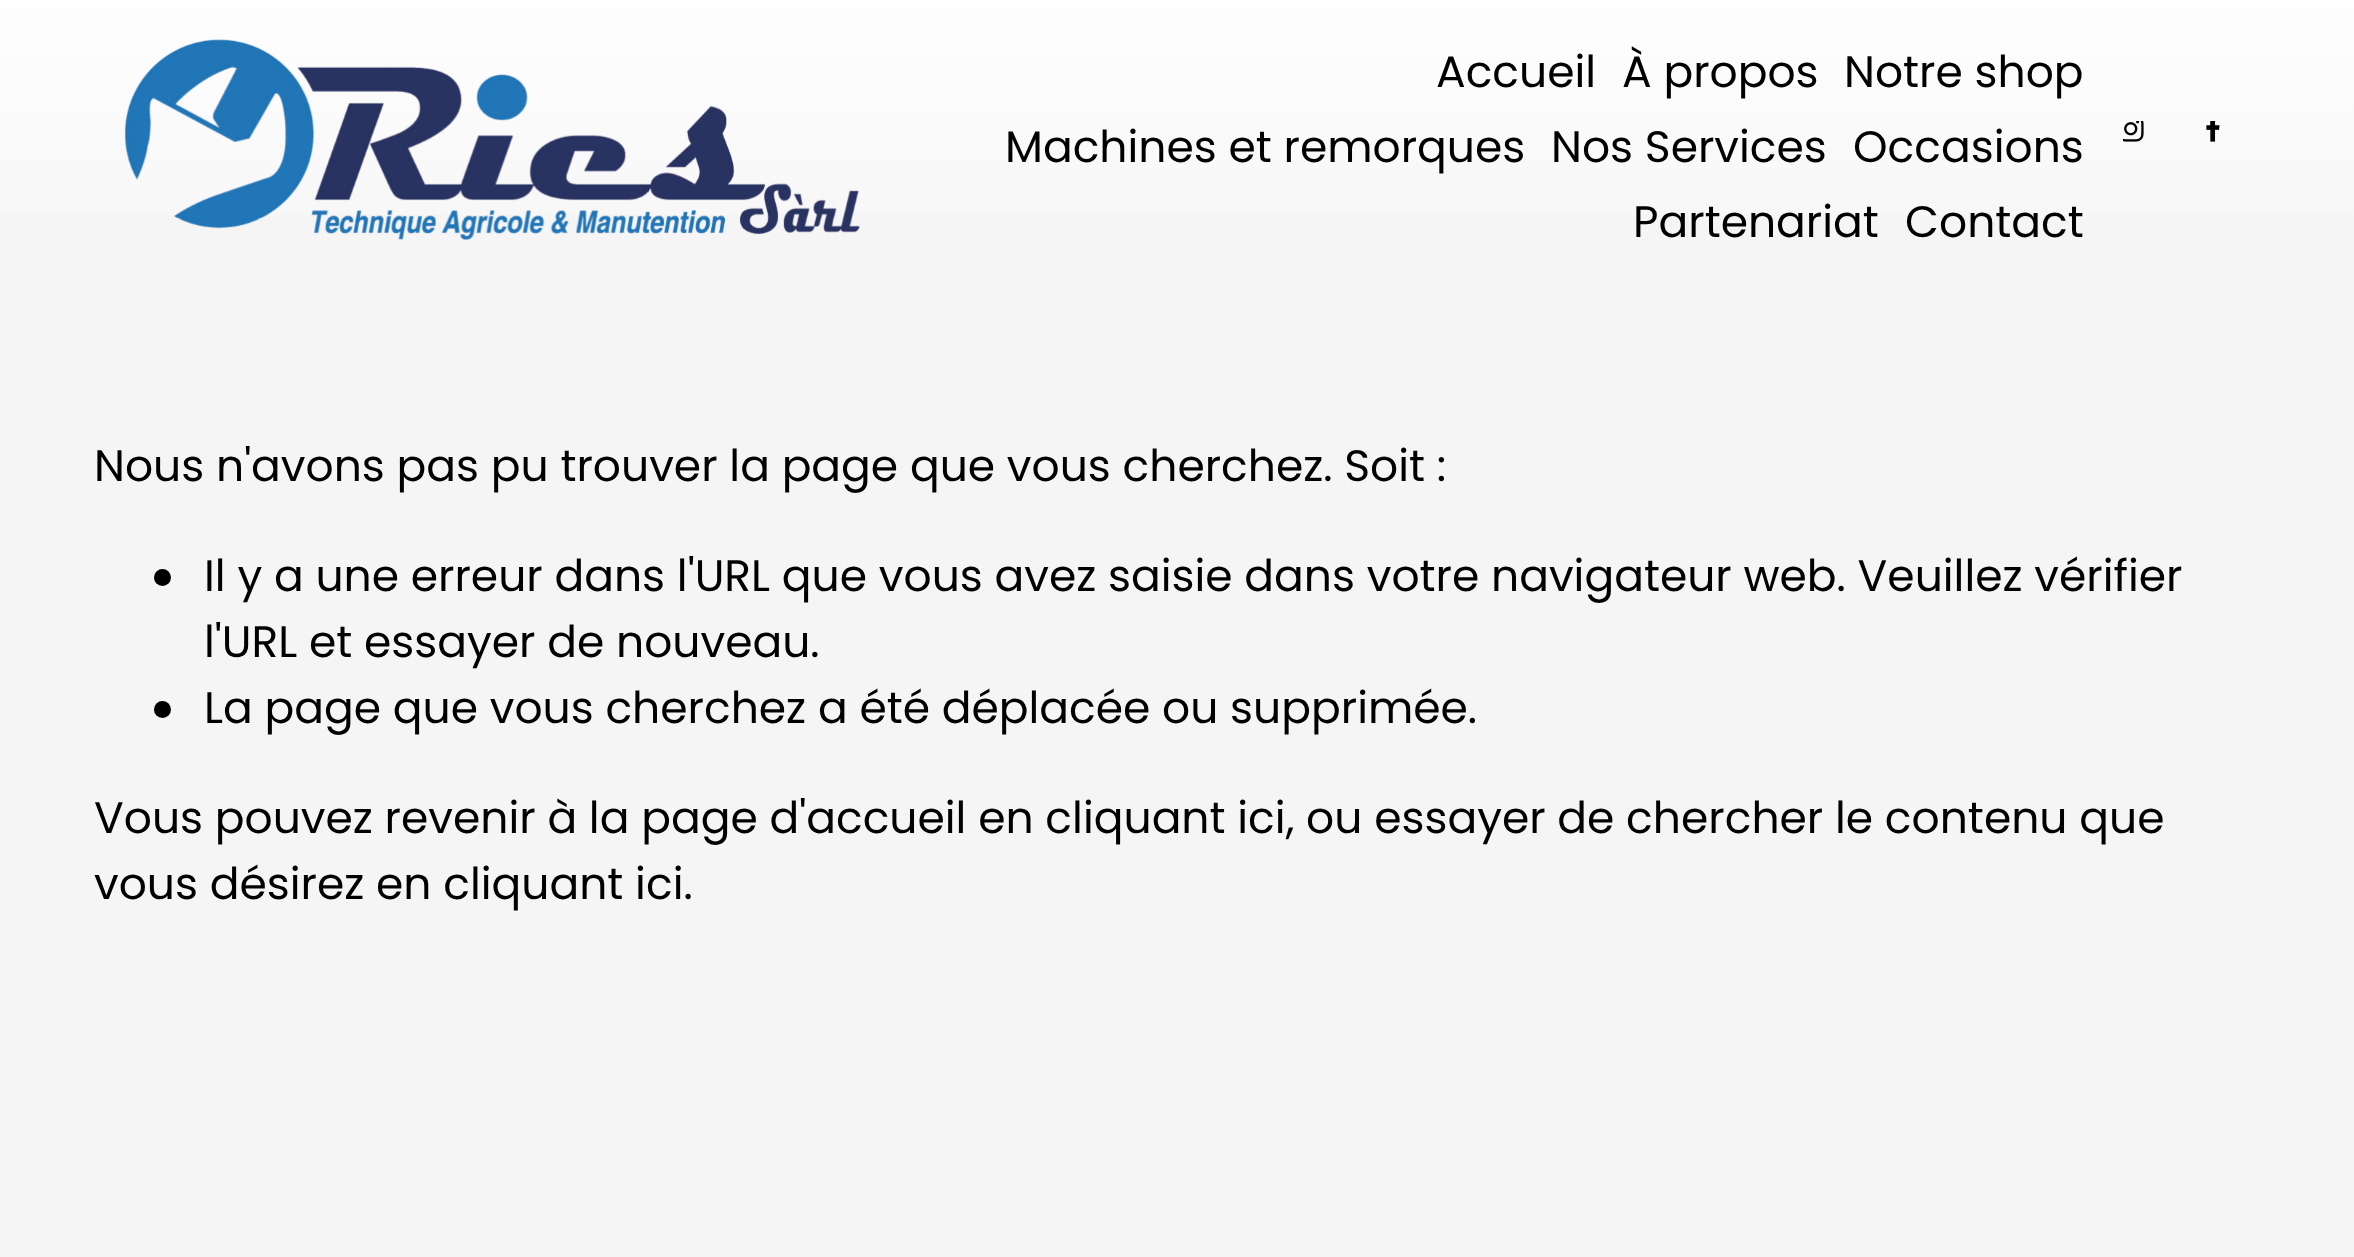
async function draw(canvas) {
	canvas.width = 2354;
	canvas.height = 1257;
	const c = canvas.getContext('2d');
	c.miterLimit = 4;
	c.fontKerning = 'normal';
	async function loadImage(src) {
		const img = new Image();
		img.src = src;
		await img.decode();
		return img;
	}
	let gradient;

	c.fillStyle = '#f5f5f5';
	c.fillRect(0, 0, 2354, 1257);
	gradient = c.createLinearGradient(1177, 0, 1177, 297);
	gradient.addColorStop(0, '#fefefe');
	gradient.addColorStop(1, '#f5f5f5');
	c.fillStyle = gradient;
	c.fillRect(0, 0, 2354, 215);
	c.drawImage(await loadImage('img1.png'), 124, 39, 736, 201);
	c.font = '44px Poppins';
	c.fillStyle = '#000';
	for (const [text, x, y] of [
		['Accueil', 1436, 87],
		['À propos', 1622, 87],
		['Notre shop', 1844, 87],
		['Machines et remorques', 1005, 162],
		['Nos Services', 1551, 162],
		['Occasions', 1853, 162],
		['Partenariat', 1633, 237],
		['Contact', 1905, 237],
	]) {
		c.fillText(text, x, y);
	}
	c.drawImage(await loadImage('img2.png'), 2123, 121, 21, 21);
	c.drawImage(await loadImage('img3.png'), 2206, 121, 14, 21);
	c.fillText('Nous n\'avons pas pu trouver la page que vous cherchez. Soit :', 94, 481);
	c.beginPath();
	c.arc(162.5, 577.5, 8.5, 0, 2 * Math.PI);
	c.fill();
	c.fillText('Il y a une erreur dans l\'URL que vous avez saisie dans votre navigateur web. Veuillez vérifier', 204, 591);
	c.fillText('l\'URL et essayer de nouveau.', 204, 657);
	c.beginPath();
	c.arc(162.5, 709.5, 8.5, 0, 2 * Math.PI);
	c.fill();
	for (const [text, x, y] of [
		['La page que vous cherchez a été déplacée ou supprimée.', 204, 723],
		['Vous pouvez revenir à la page d\'accueil en cliquant ici, ou essayer de chercher le contenu que', 94, 833],
		['vous désirez en cliquant ici.', 94, 899],
	]) {
		c.fillText(text, x, y);
	}
}

draw(document.querySelector('canvas'));
